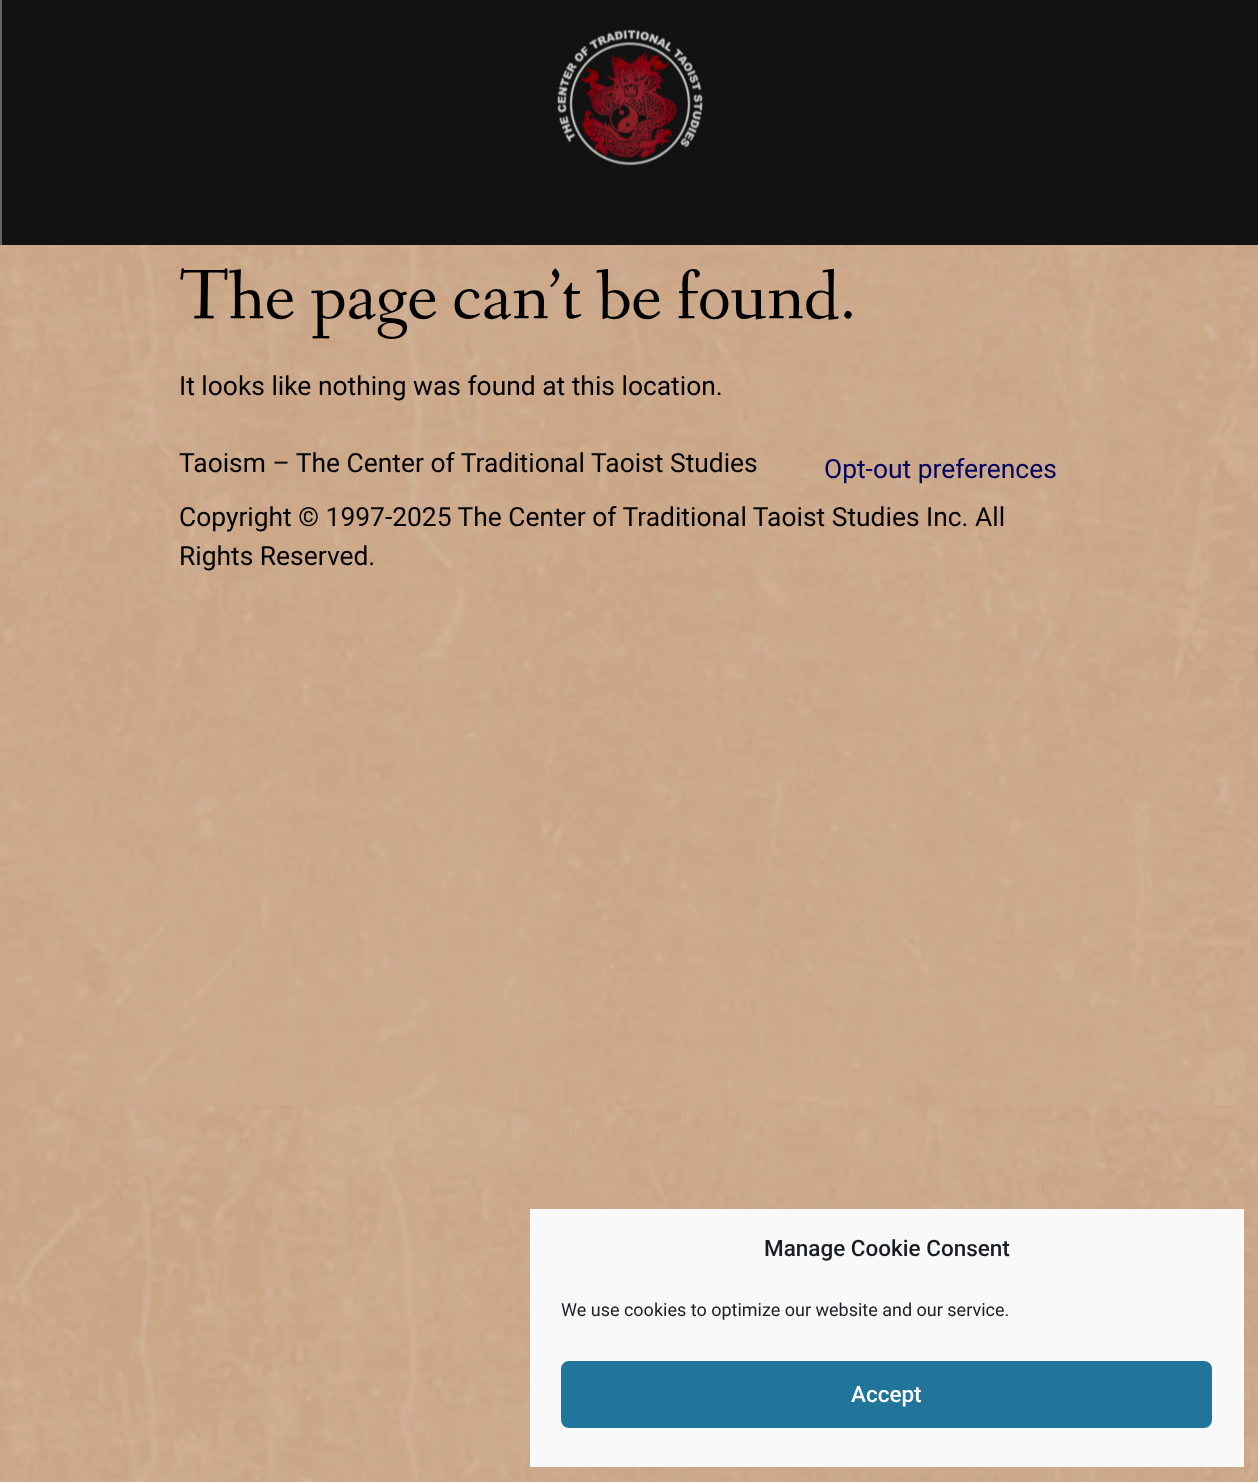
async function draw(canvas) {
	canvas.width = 1258;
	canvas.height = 1482;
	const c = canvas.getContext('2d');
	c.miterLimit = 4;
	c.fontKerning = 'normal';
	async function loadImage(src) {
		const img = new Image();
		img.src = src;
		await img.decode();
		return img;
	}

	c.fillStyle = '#fff';
	c.fillRect(0, 0, 1258, 1482);
	c.drawImage(await loadImage('img1.png'), 0, 245, 1258, 1237);
	c.fillStyle = '#121212';
	c.fillRect(2, 0, 1256, 245);
	c.fillStyle = '#656565';
	c.fillRect(0, 0, 2, 245);
	c.drawImage(await loadImage('img2.png'), 557, 29, 146, 137);
	c.font = '72px Fanwood Text';
	c.fillStyle = '#000';
	c.fillText('The page can’t be found.', 179, 318);
	c.font = '26.4px Roboto';
	c.fillText('It looks like nothing was found at this location.', 179, 395);
	c.fillText('Taoism – The Center of Traditional Taoist Studies', 179, 472);
	c.fillStyle = '#000160';
	c.fillText('Opt-out preferences', 824, 478);
	c.fillStyle = '#000';
	c.fillText('Copyright © 1997-2025 The Center of Traditional Taoist Studies Inc. All', 179, 526);
	c.fillText('Rights Reserved.', 179, 565);
	c.fillStyle = '#f9f9f9';
	c.fillRect(530, 1209, 714, 258);
	c.font = '500 22.5px Roboto';
	c.fillStyle = '#191e23';
	c.fillText('Manage Cookie Consent', 764, 1256);
	c.font = '18px Roboto';
	c.fillText('We use cookies to optimize our website and our service.', 561, 1316);
	c.fillStyle = '#21759b';
	c.beginPath();
	c.roundRect(562, 1362, 649, 65, 7);
	c.fill();
	c.strokeStyle = '#21759b';
	c.lineWidth = 2;
	c.stroke();
	c.font = '500 22.5px Roboto';
	c.fillStyle = '#fff';
	c.fillText('Accept', 851, 1402);
}

draw(document.querySelector('canvas'));
